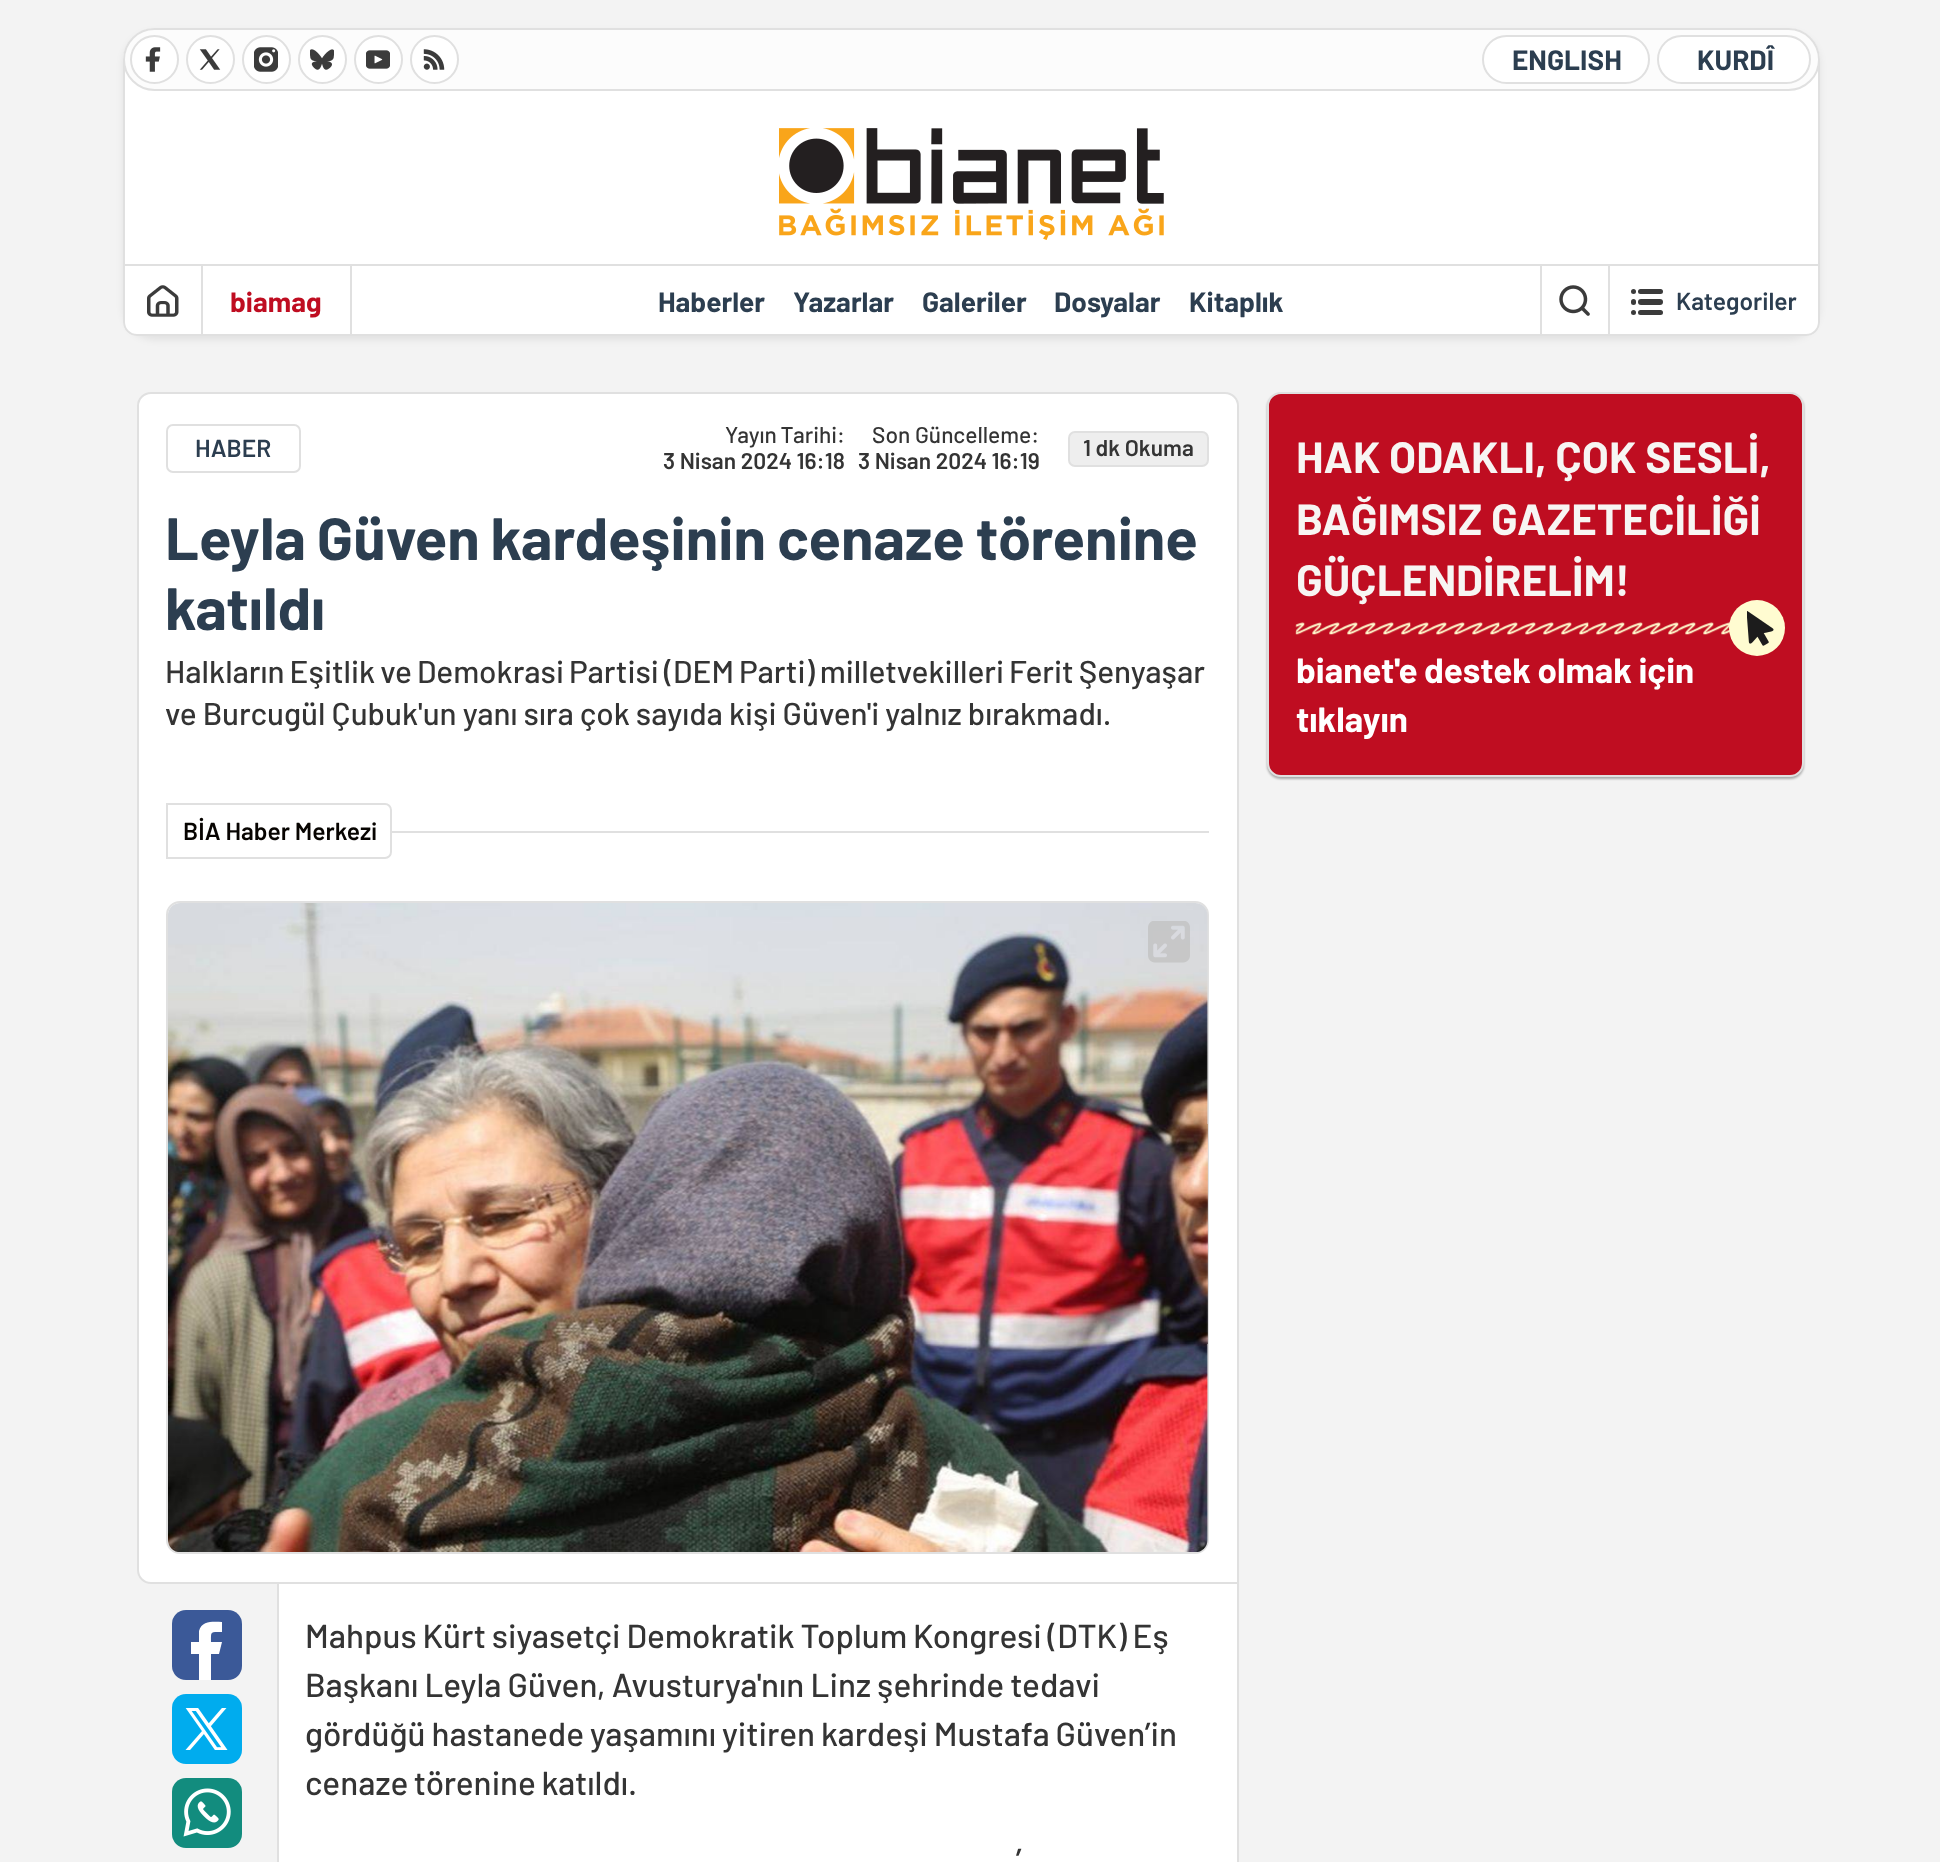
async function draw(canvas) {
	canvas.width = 1940;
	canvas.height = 1862;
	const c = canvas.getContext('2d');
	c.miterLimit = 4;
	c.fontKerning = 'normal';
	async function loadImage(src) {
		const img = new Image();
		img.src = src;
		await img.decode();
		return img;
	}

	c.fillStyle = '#f3f3f3';
	c.fillRect(0, 0, 1940, 1862);
	c.fillStyle = '#00000012';
	c.filter = 'blur(3.5px)';
	c.beginPath();
	c.roundRect(123, 32, 1697, 308, 32);
	c.fill();
	c.filter = 'none';
	c.fillStyle = '#fff';
	c.beginPath();
	c.roundRect(123, 28, 1697, 308, [32, 32, 14, 14]);
	c.fill();
	c.beginPath();
	c.roundRect(124, 265, 1695, 70, [0, 0, 13, 13]);
	c.fill();
	c.strokeStyle = '#e0e0e0';
	c.lineWidth = 2;
	c.stroke();
	c.strokeRect(124, 61, 1695, 204);
	c.fillStyle = '#fcfcfc';
	c.beginPath();
	c.roundRect(124, 29, 1695, 61, 30.5);
	c.fill();
	c.stroke();
	c.fillStyle = '#fff';
	c.beginPath();
	c.arc(154.5, 59.5, 23.5, 0, 2 * Math.PI);
	c.fill();
	c.stroke();
	c.drawImage(await loadImage('img1.png'), 145, 47, 16, 25);
	c.beginPath();
	c.arc(210.5, 59.5, 23.5, 0, 2 * Math.PI);
	c.fill();
	c.stroke();
	c.drawImage(await loadImage('img2.png'), 199, 49, 22, 21);
	c.beginPath();
	c.arc(266.5, 59.5, 23.5, 0, 2 * Math.PI);
	c.fill();
	c.stroke();
	c.drawImage(await loadImage('img3.png'), 254, 47, 24, 25);
	c.beginPath();
	c.arc(322.5, 59.5, 23.5, 0, 2 * Math.PI);
	c.fill();
	c.stroke();
	c.drawImage(await loadImage('img4.png'), 310, 49, 24, 21);
	c.beginPath();
	c.arc(378.5, 59.5, 23.5, 0, 2 * Math.PI);
	c.fill();
	c.stroke();
	c.drawImage(await loadImage('img5.png'), 366, 50, 24, 19);
	c.beginPath();
	c.arc(434.5, 59.5, 23.5, 0, 2 * Math.PI);
	c.fill();
	c.stroke();
	c.drawImage(await loadImage('img6.png'), 423, 49, 22, 21);
	c.beginPath();
	c.roundRect(1483, 36, 166, 47, 23.5);
	c.fill();
	c.stroke();
	c.font = 'bold 28px Barlow';
	c.fillStyle = '#2c3e50';
	c.fillText('ENGLISH', 1512, 70);
	c.fillStyle = '#fff';
	c.beginPath();
	c.roundRect(1658, 36, 152, 47, 23.5);
	c.fill();
	c.stroke();
	c.fillStyle = '#2c3e50';
	c.fillText('KURDÎ', 1697, 70);
	c.drawImage(await loadImage('img7.png'), 779, 128, 385, 112);
	c.drawImage(await loadImage('img8.png'), 147, 285, 32, 32);
	c.fillStyle = '#e0e0e0';
	c.fillRect(201, 266, 2, 70);
	c.fillStyle = '#bf0d21';
	c.fillText('biamag', 230, 312);
	c.fillStyle = '#e0e0e0';
	c.fillRect(350, 266, 2, 70);
	c.fillStyle = '#2c3e50';
	for (const [text, x, y] of [
		['Haberler', 658, 312],
		['Yazarlar', 793, 312],
		['Galeriler', 922, 312],
		['Dosyalar', 1054, 312],
		['Kitaplık', 1189, 312],
	]) {
		c.fillText(text, x, y);
	}
	c.fillStyle = '#e0e0e0';
	c.fillRect(1540, 266, 2, 70);
	c.drawImage(await loadImage('img9.png'), 1559, 285, 31, 31);
	c.fillRect(1608, 266, 2, 70);
	c.fillStyle = '#3b3b3b';
	c.beginPath();
	c.roundRect(1638, 289, 25, 5, 2.5);
	c.fill();
	c.beginPath();
	c.arc(1633.5, 291.5, 2.5, 0, 2 * Math.PI);
	c.fill();
	c.beginPath();
	c.roundRect(1638, 299, 25, 6, 3);
	c.fill();
	c.beginPath();
	c.roundRect(1631, 299, 5, 6, 2.5);
	c.fill();
	c.beginPath();
	c.roundRect(1638, 310, 25, 5, 2.5);
	c.fill();
	c.beginPath();
	c.arc(1633.5, 312.5, 2.5, 0, 2 * Math.PI);
	c.fill();
	c.font = '600 24.5px Barlow';
	c.fillStyle = '#2c3e50';
	c.fillText('Kategoriler', 1676, 310);
	c.fillStyle = '#fff';
	c.beginPath();
	c.roundRect(138, 393, 1100, 1190, [13, 13, 0, 13]);
	c.fill();
	c.stroke();
	c.beginPath();
	c.roundRect(167, 425, 133, 47, 6);
	c.stroke();
	c.fillStyle = '#2c3e50';
	c.fillText('HABER', 195, 457);
	c.wordSpacing = '-1px';
	c.font = '500 22.75px Barlow';
	c.fillStyle = '#343434';
	c.fillText('Yayın Tarihi:', 725, 443);
	c.wordSpacing = '0px';
	c.font = '600 22.75px Barlow';
	c.fillText('3 Nisan 2024 16:18', 663, 469);
	c.font = '500 22.75px Barlow';
	c.fillText('Son Güncelleme:', 872, 443);
	c.font = '600 22.75px Barlow';
	c.fillText('3 Nisan 2024 16:19', 858, 469);
	c.fillStyle = '#eee';
	c.beginPath();
	c.roundRect(1069, 432, 139, 34, 6);
	c.fill();
	c.stroke();
	c.fillStyle = '#343434';
	c.fillText('1 dk Okuma', 1083, 456);
	c.wordSpacing = '-1px';
	c.font = 'bold 59.5px Barlow';
	c.fillStyle = '#2c3e50';
	c.fillText('Leyla Güven kardeşinin cenaze törenine', 165, 560);
	c.wordSpacing = '0px';
	c.fillText('katıldı', 165, 630);
	c.wordSpacing = '-1.25px';
	c.font = '500 31.5px Barlow';
	c.fillStyle = '#343434';
	c.fillText('Halkların Eşitlik ve Demokrasi Partisi (DEM Parti) milletvekilleri Ferit Şenyaşar', 165, 683);
	c.wordSpacing = '-0.25px';
	c.fillText('ve Burcugül Çubuk\'un yanı sıra çok sayıda kişi Güven\'i yalnız bırakmadı.', 165, 725);
	c.beginPath();
	c.roundRect(167, 804, 224, 54, [0, 6, 6, 0]);
	c.stroke();
	c.wordSpacing = '0px';
	c.font = '600 24.5px Barlow';
	c.fillStyle = '#070401';
	c.fillText('BİA Haber Merkezi', 183, 840);
	c.fillStyle = '#e0e0e0';
	c.fillRect(392, 831, 817, 2);
	c.beginPath();
	c.roundRect(167, 902, 1041, 651, 13);
	c.stroke();
	c.drawImage(await loadImage('img10.png'), 168, 903, 1040, 649);
	c.drawImage(await loadImage('img11.png'), 1148, 921, 42, 42);
	c.fillStyle = '#3b5998';
	c.beginPath();
	c.roundRect(172, 1610, 70, 70, 14);
	c.fill();
	c.fillStyle = '#fff';
	c.beginPath();
	c.moveTo(199, 1680);
	c.lineTo(199, 1654);
	c.lineTo(191, 1654);
	c.lineTo(191, 1642);
	c.lineTo(199, 1642);
	c.lineTo(199, 1631);
	c.bezierCurveTo(202, 1620, 214, 1622, 222, 1622);
	c.lineTo(222, 1632);
	c.bezierCurveTo(210, 1632, 211, 1631, 211, 1642);
	c.lineTo(222, 1642);
	c.lineTo(219, 1654);
	c.lineTo(211, 1654);
	c.lineTo(211, 1680);
	c.closePath();
	c.fill('evenodd');
	c.fillStyle = '#00acee';
	c.beginPath();
	c.roundRect(172, 1694, 70, 70, 14);
	c.fill();
	c.drawImage(await loadImage('img12.png'), 185, 1708, 43, 42);
	c.fillStyle = '#128c7e';
	c.beginPath();
	c.roundRect(172, 1778, 70, 70, 14);
	c.fill();
	c.drawImage(await loadImage('img13.png'), 183, 1788, 48, 49);
	c.fillStyle = '#fff';
	c.beginPath();
	c.rect(278, 1583, 960, 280);
	c.fill();
	c.stroke();
	c.wordSpacing = '-0.75px';
	c.font = '500 33.25px Barlow';
	c.fillStyle = '#343434';
	c.fillText('Mahpus Kürt siyasetçi Demokratik Toplum Kongresi (DTK) Eş', 305, 1648);
	c.wordSpacing = '-0.5px';
	c.fillText('Başkanı Leyla Güven, Avusturya\'nın Linz şehrinde tedavi', 305, 1697);
	c.wordSpacing = '-0.75px';
	c.fillText('gördüğü hastanede yaşamını yitiren kardeşi Mustafa Güven’in', 305, 1746);
	c.wordSpacing = '-1px';
	c.fillText('cenaze törenine katıldı.', 305, 1795);
	c.wordSpacing = '0px';
	c.fillText('’', 1016, 1872);
	c.fillStyle = '#0000004d';
	c.filter = 'blur(1px)';
	c.beginPath();
	c.roundRect(1267, 394, 537, 385, 14);
	c.fill();
	c.filter = 'none';
	c.fillStyle = '#bf0d21';
	c.beginPath();
	c.roundRect(1268, 393, 535, 383, 13);
	c.fill();
	c.stroke();
	c.font = 'bold 43.75px Barlow';
	c.fillStyle = '#f7f5f3';
	for (const [text, x, y] of [
		['HAK ODAKLI, ÇOK SESLİ,', 1296, 473],
		['BAĞIMSIZ GAZETECİLİĞİ', 1296, 535],
		['GÜÇLENDİRELİM!', 1296, 596],
	]) {
		c.fillText(text, x, y);
	}
	c.drawImage(await loadImage('img14.png'), 1295, 622, 435, 13);
	c.wordSpacing = '-0.5px';
	c.font = 'bold 35px Barlow';
	c.fillStyle = '#fff';
	c.fillText('bianet\'e destek olmak için', 1296, 683);
	c.wordSpacing = '0px';
	c.fillText('tıklayın', 1296, 732);
	c.fillStyle = '#fffcd1';
	c.beginPath();
	c.arc(1757, 628, 28, 0, 2 * Math.PI);
	c.fill();
	c.drawImage(await loadImage('img15.png'), 1747, 611, 27, 35);
}

draw(document.querySelector('canvas'));
